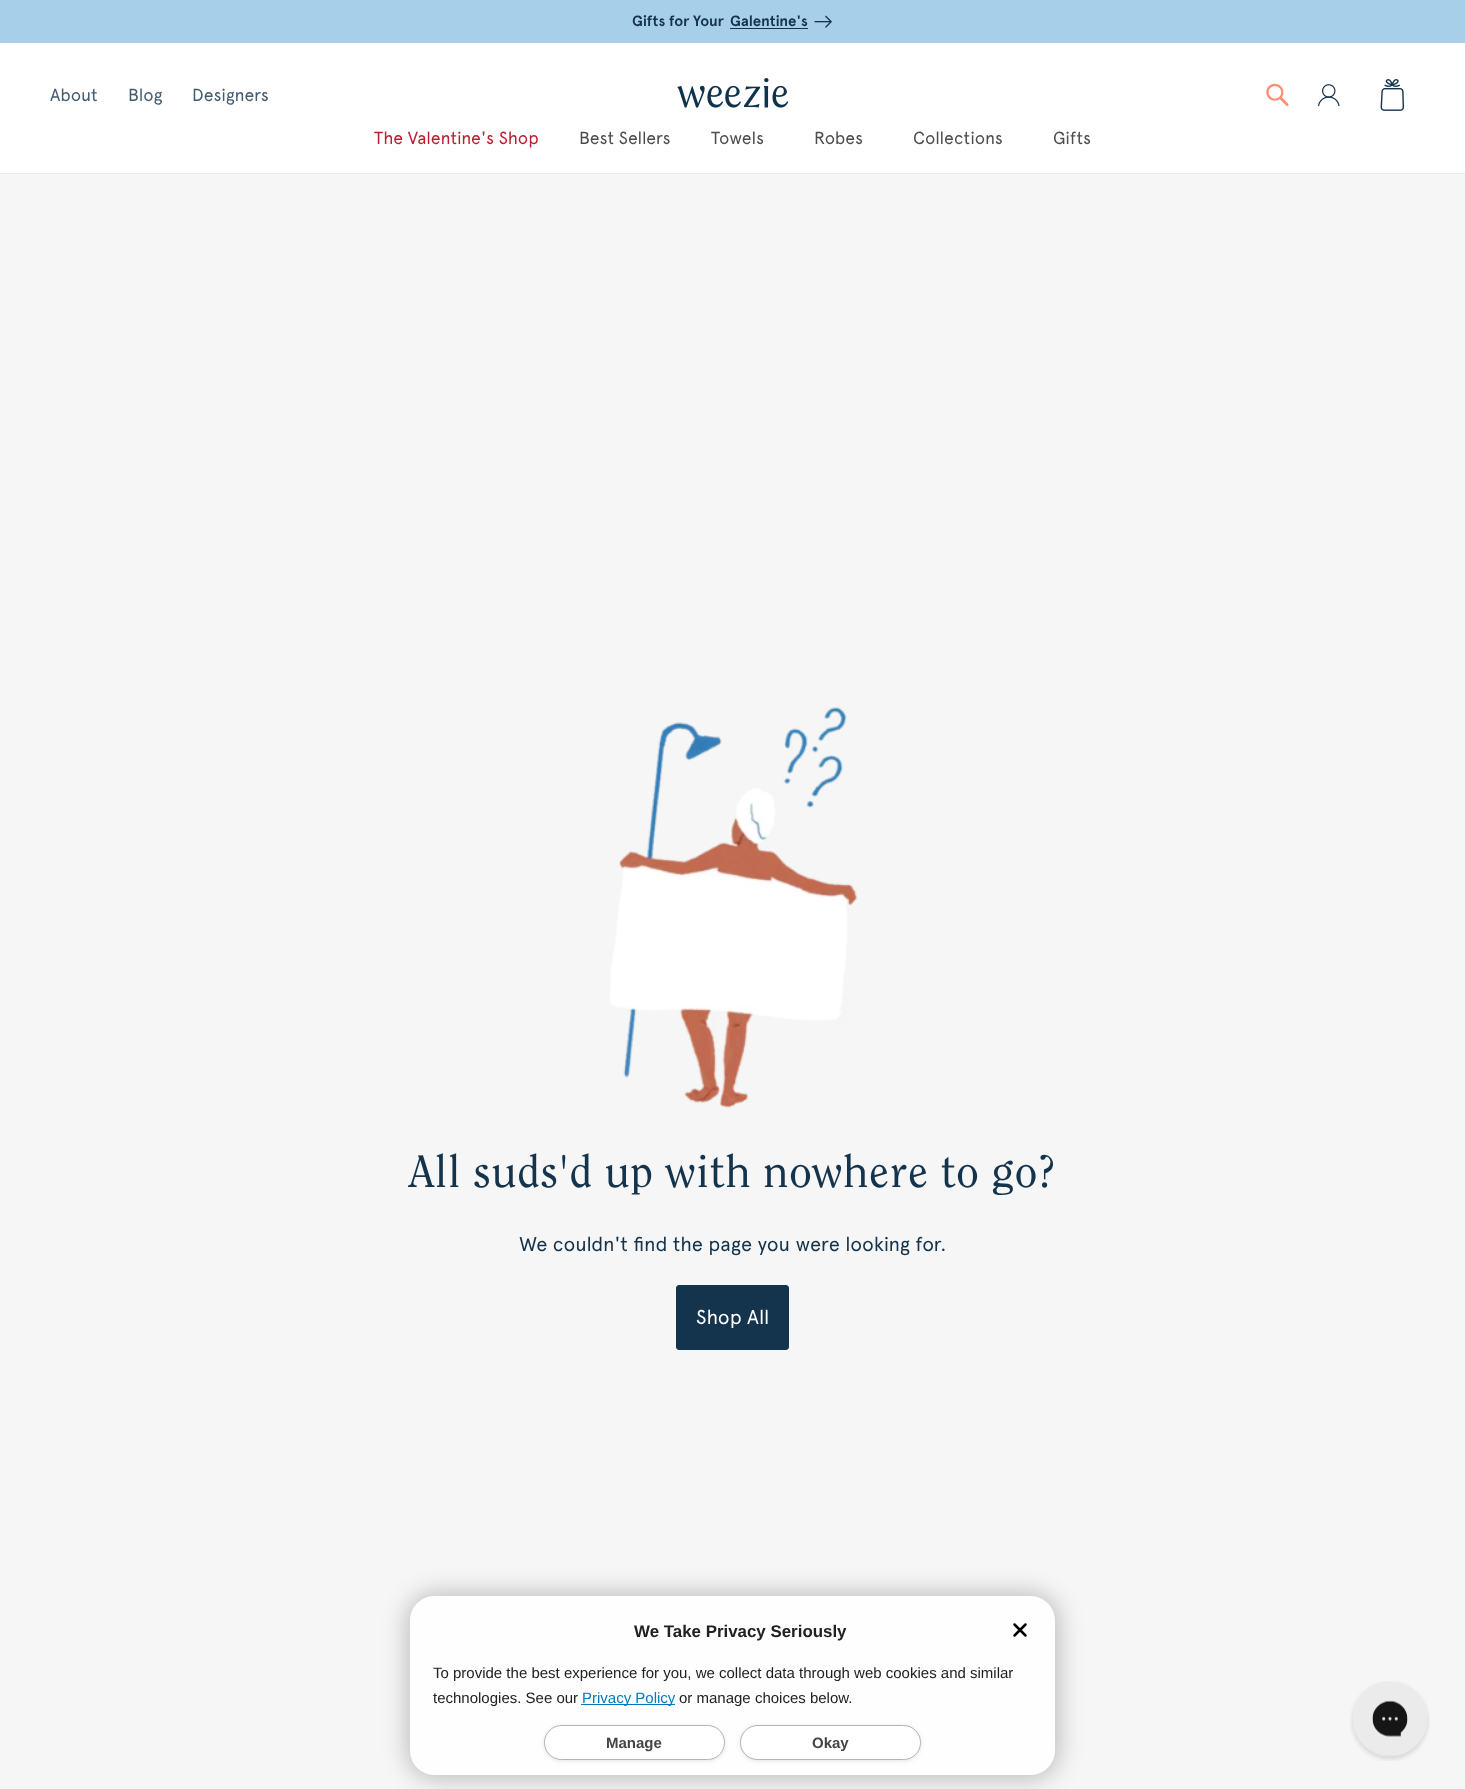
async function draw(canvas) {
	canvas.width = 1465;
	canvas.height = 1789;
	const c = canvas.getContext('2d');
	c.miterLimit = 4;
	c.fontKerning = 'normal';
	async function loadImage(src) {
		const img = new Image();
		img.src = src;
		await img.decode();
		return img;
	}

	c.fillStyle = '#f6f6f6';
	c.fillRect(0, 0, 1465, 1789);
	c.fillStyle = '#a7cfe9';
	c.fillRect(0, 0, 1465, 43);
	c.font = 'bold 15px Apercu';
	c.fillStyle = '#14334c';
	c.fillText('Gifts for Your', 632, 26);
	c.fillText('Galentine\'s', 730, 26);
	c.fillRect(730, 28, 78, 1);
	c.drawImage(await loadImage('img1.png'), 814, 15, 18, 13);
	c.fillStyle = '#fff';
	c.fillRect(0, 43, 1465, 130);
	c.fillStyle = '#ececec';
	c.fillRect(0, 173, 1465, 1);
	c.font = '17.5px Apercu';
	c.fillStyle = '#435c70';
	for (const [text, x, y] of [
		['About', 50, 101],
		['Blog', 128, 101],
		['Designers', 192, 101],
	]) {
		c.fillText(text, x, y);
	}
	c.drawImage(await loadImage('img2.png'), 677, 78, 112, 30);
	c.drawImage(await loadImage('img3.png'), 1266, 83, 23, 24);
	c.drawImage(await loadImage('img4.png'), 1318, 84, 22, 23);
	c.drawImage(await loadImage('img5.png'), 1380, 79, 24, 32);
	c.fillStyle = '#ba1f31';
	c.fillText('The Valentine\'s Shop', 374, 144);
	c.fillStyle = '#4d4d4d';
	for (const [text, x, y] of [
		['Best Sellers', 579, 144],
		['Towels', 711, 144],
		['Robes', 814, 144],
		['Collections', 913, 144],
		['Gifts', 1053, 144],
	]) {
		c.fillText(text, x, y);
	}
	c.drawImage(await loadImage('img6.png'), 610, 707, 248, 401);
	c.letterSpacing = '0.75px';
	c.font = '45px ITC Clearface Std';
	c.fillStyle = '#14334c';
	c.fillText('All suds\'d up with nowhere to go?', 409, 1187);
	c.letterSpacing = '0px';
	c.font = '20px Apercu';
	c.fillText('We couldn\'t find the page you were looking for.', 519, 1251);
	c.beginPath();
	c.roundRect(676.5, 1285.5, 112, 64, 2.5);
	c.fill();
	c.strokeStyle = '#14334c';
	c.stroke();
	c.fillStyle = '#fff';
	c.fillText('Shop All', 696, 1324);
	c.drawImage(await loadImage('img7.png'), 1350, 1681, 80, 80);
	c.save();
	c.beginPath();
	c.moveTo(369, 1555);
	c.lineTo(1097, 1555);
	c.lineTo(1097, 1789);
	c.lineTo(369, 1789);
	c.closePath();
	c.moveTo(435, 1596);
	c.lineTo(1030, 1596);
	c.bezierCurveTo(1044, 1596, 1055, 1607, 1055, 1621);
	c.lineTo(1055, 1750);
	c.bezierCurveTo(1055, 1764, 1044, 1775, 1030, 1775);
	c.lineTo(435, 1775);
	c.bezierCurveTo(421, 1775, 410, 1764, 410, 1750);
	c.lineTo(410, 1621);
	c.bezierCurveTo(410, 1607, 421, 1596, 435, 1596);
	c.closePath();
	c.clip('evenodd');
	c.fillStyle = '#00000040';
	c.filter = 'blur(12.5px)';
	c.beginPath();
	c.roundRect(408, 1594, 650, 184, 28);
	c.fill();
	c.filter = 'none';
	c.restore();
	c.fillStyle = '#ffffffd9';
	c.beginPath();
	c.roundRect(410, 1596, 645, 179, 25);
	c.fill();
	c.font = 'bold 16.9px Liberation Sans';
	c.fillStyle = '#212121';
	c.fillText('We Take Privacy Seriously', 634, 1637);
	c.beginPath();
	c.moveTo(1025.5, 1624.5);
	c.lineTo(1014.5, 1635.5);
	c.moveTo(1014.5, 1624.5);
	c.lineTo(1025.5, 1635.5);
	c.strokeStyle = '#000';
	c.lineWidth = 2.5;
	c.lineCap = 'round';
	c.lineJoin = 'round';
	c.stroke();
	c.font = '15px Liberation Sans';
	c.fillText('To provide the best experience for you, we collect data through web cookies and similar', 433, 1678);
	c.fillText('technologies. See our', 433, 1703);
	c.fillStyle = '#007bbd';
	c.fillRect(581, 1704, 94, 1);
	c.fillText('Privacy Policy', 582, 1703);
	c.fillStyle = '#212121';
	c.fillText('or manage choices below.', 679, 1703);
	c.fillStyle = '#0000001a';
	c.filter = 'blur(2px)';
	c.beginPath();
	c.roundRect(544, 1726, 181, 35, 17.5);
	c.fill();
	c.filter = 'none';
	c.fillStyle = '#fff';
	c.beginPath();
	c.roundRect(544.5, 1725.5, 180, 34, 17);
	c.fill();
	c.strokeStyle = '#b4b4b4';
	c.lineWidth = 1;
	c.lineJoin = 'miter';
	c.stroke();
	c.font = 'bold 15px Liberation Sans';
	c.fillStyle = '#444';
	c.fillText('Manage', 606, 1748);
	c.fillStyle = '#0000001a';
	c.filter = 'blur(2px)';
	c.beginPath();
	c.roundRect(740, 1726, 181, 35, 17.5);
	c.fill();
	c.filter = 'none';
	c.fillStyle = '#fff';
	c.beginPath();
	c.roundRect(740.5, 1725.5, 180, 34, 17);
	c.fill();
	c.stroke();
	c.fillStyle = '#444';
	c.fillText('Okay', 812, 1748);
}

draw(document.querySelector('canvas'));
